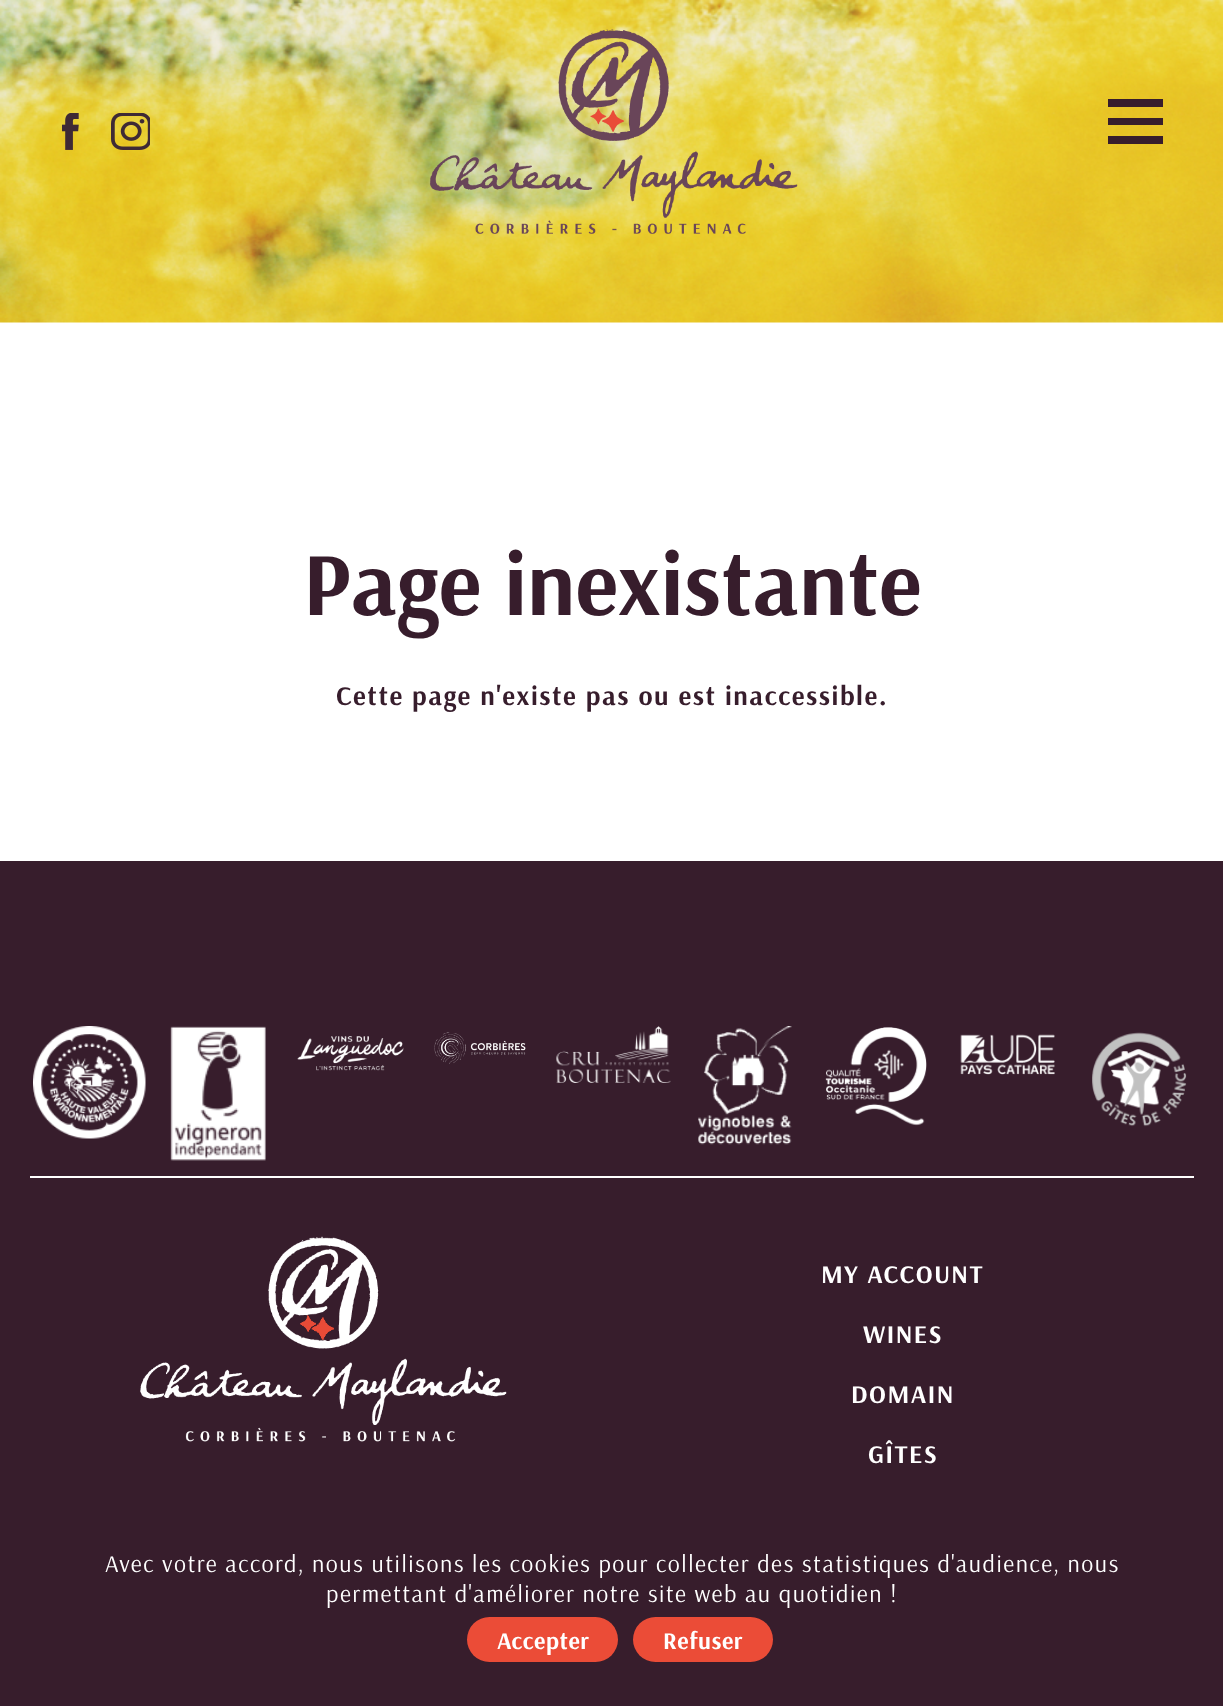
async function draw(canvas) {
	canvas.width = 1223;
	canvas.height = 1706;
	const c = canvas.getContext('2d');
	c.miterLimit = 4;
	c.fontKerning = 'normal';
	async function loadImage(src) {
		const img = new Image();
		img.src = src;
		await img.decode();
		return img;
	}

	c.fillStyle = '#fff';
	c.fillRect(0, 0, 1223, 1706);
	c.drawImage(await loadImage('img1.png'), 0, 0, 1223, 323);
	c.drawImage(await loadImage('img2.png'), 62, 113, 17, 37);
	c.drawImage(await loadImage('img3.png'), 111, 113, 39, 37);
	c.drawImage(await loadImage('img4.png'), 429, 29, 369, 205);
	for (const [x, y, w, h, color] of [
		[1108, 99, 55, 8, '#371d2c'],
		[1108, 118, 55, 7, '#371d2c'],
		[1108, 136, 55, 8, '#371d2c'],
	]) {
		c.fillStyle = color;
		c.fillRect(x, y, w, h);
	}
	c.font = 'bold 90px Arsenal';
	c.fillText('Page inexistante', 303, 615);
	c.letterSpacing = '1.5px';
	c.font = 'bold 27px Arsenal';
	c.fillText('Cette page n\'existe pas ou est inaccessible.', 336, 705);
	c.fillRect(0, 861, 1223, 845);
	c.fillStyle = '#fff';
	c.fillRect(30, 1176, 1164, 2);
	c.drawImage(await loadImage('img5.png'), 33, 1026, 113, 113);
	c.drawImage(await loadImage('img6.png'), 170, 1026, 96, 135);
	c.drawImage(await loadImage('img7.png'), 297, 1036, 107, 35);
	c.drawImage(await loadImage('img8.png'), 434, 1032, 92, 32);
	c.drawImage(await loadImage('img9.png'), 556, 1026, 115, 57);
	c.drawImage(await loadImage('img10.png'), 698, 1026, 94, 119);
	c.drawImage(await loadImage('img11.png'), 825, 1027, 102, 99);
	c.drawImage(await loadImage('img12.png'), 960, 1034, 95, 41);
	c.drawImage(await loadImage('img13.png'), 1092, 1032, 95, 95);
	c.drawImage(await loadImage('img14.png'), 140, 1236, 367, 206);
	c.font = 'bold 25.5px Arsenal';
	for (const [text, x, y] of [
		['MY ACCOUNT', 821, 1283],
		['WINES', 863, 1343],
		['DOMAIN', 851, 1403],
		['GÎTES', 868, 1463],
	]) {
		c.fillText(text, x, y);
	}
	c.font = 'italic 24px Arsenal';
	c.fillText('Avec votre accord, nous utilisons les cookies pour collecter des statistiques d\'audience, nous', 105, 1572);
	c.fillText('permettant d\'améliorer notre site web au quotidien !', 326, 1602);
	c.fillStyle = '#eb4c37';
	c.beginPath();
	c.roundRect(467, 1617, 151, 45, 22.5);
	c.fill();
	c.letterSpacing = '0.5px';
	c.font = 'bold 24px Arsenal';
	c.fillStyle = '#fff';
	c.fillText('Accepter', 497, 1649);
	c.fillStyle = '#eb4c37';
	c.beginPath();
	c.roundRect(633, 1617, 140, 45, 22.5);
	c.fill();
	c.fillStyle = '#fff';
	c.fillText('Refuser', 663, 1649);
}

draw(document.querySelector('canvas'));
